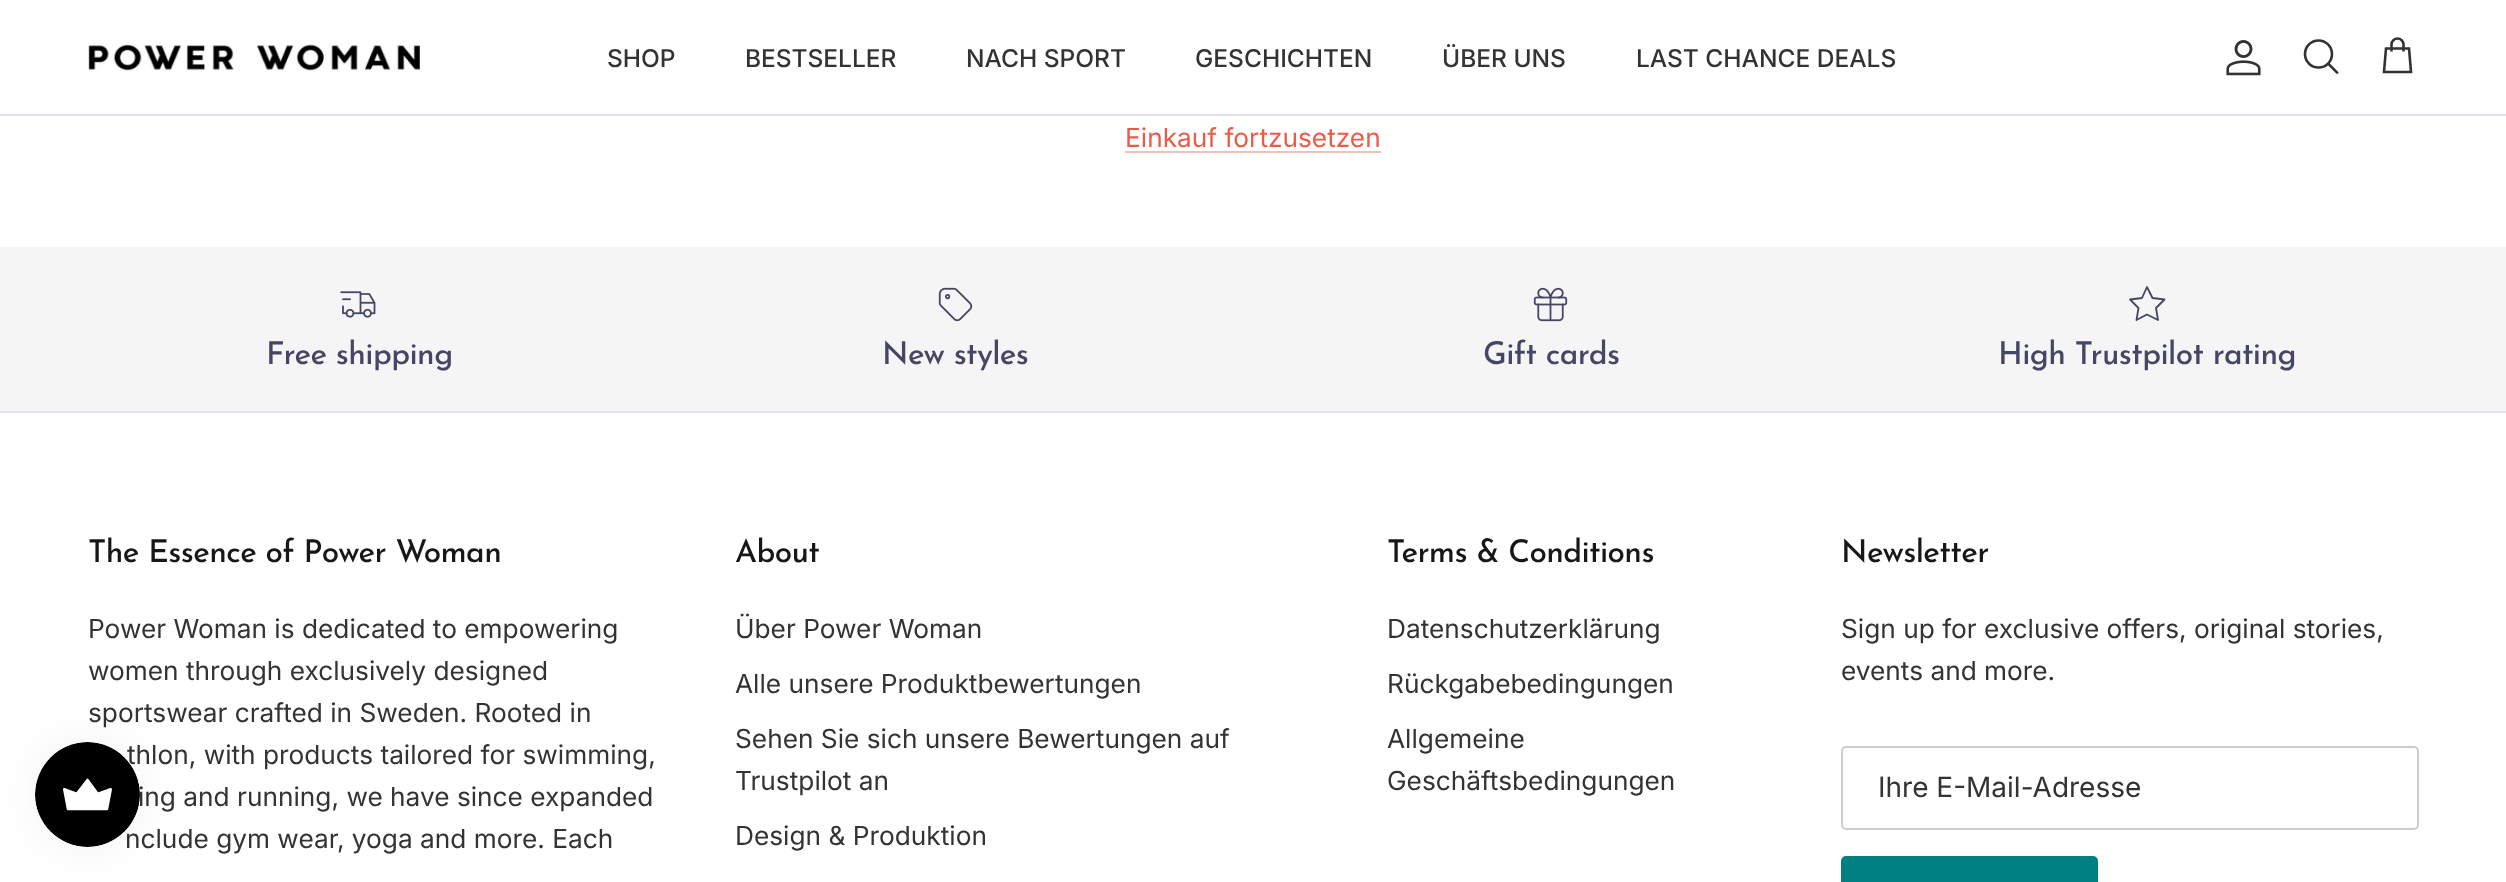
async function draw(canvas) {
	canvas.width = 2506;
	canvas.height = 882;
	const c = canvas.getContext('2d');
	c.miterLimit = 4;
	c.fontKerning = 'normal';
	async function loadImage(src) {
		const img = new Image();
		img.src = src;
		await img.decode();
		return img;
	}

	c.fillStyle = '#fff';
	c.fillRect(0, 0, 2506, 882);
	c.fillStyle = '#dfe3e8';
	c.fillRect(0, 114, 2506, 2);
	c.drawImage(await loadImage('img1.png'), 88, 44, 332, 27);
	c.font = '500 24.5px Inter';
	c.fillStyle = '#333';
	for (const [text, x, y] of [
		['SHOP', 607, 67],
		['BESTSELLER', 745, 67],
		['NACH SPORT', 966, 67],
		['GESCHICHTEN', 1195, 67],
		['ÜBER UNS', 1442, 67],
		['LAST CHANCE DEALS', 1636, 67],
	]) {
		c.fillText(text, x, y);
	}
	c.drawImage(await loadImage('img2.png'), 2226, 40, 35, 36);
	c.beginPath();
	c.arc(2318.5, 54, 13.5, 0, 2 * Math.PI);
	c.strokeStyle = '#333';
	c.lineWidth = 2.6;
	c.stroke();
	c.beginPath();
	c.moveTo(2329, 64.5);
	c.lineTo(2337, 72.5);
	c.lineCap = 'square';
	c.stroke();
	c.beginPath();
	c.moveTo(2403.5, 51.5);
	c.lineTo(2403.5, 44.5);
	c.bezierCurveTo(2403.5, 41, 2400.5, 38.5, 2397.5, 38.5);
	c.bezierCurveTo(2394.5, 38.5, 2391.5, 41, 2391.5, 44.5);
	c.lineTo(2391.5, 51.5);
	c.moveTo(2386, 48.5);
	c.lineTo(2409, 48.5);
	c.lineTo(2411, 72);
	c.lineTo(2384, 72);
	c.closePath();
	c.lineCap = 'butt';
	c.stroke();
	c.font = '26.25px Inter';
	c.fillStyle = '#e85c4a';
	c.fillText('Einkauf fortzusetzen', 1125, 147);
	c.fillStyle = '#f6beb7';
	c.fillRect(1125, 151, 256, 2);
	c.fillStyle = '#f5f5f5';
	c.fillRect(0, 247, 2506, 164);
	c.drawImage(await loadImage('img3.png'), 340, 291, 36, 27);
	c.letterSpacing = '-0.6px';
	c.font = '500 31.5px Josefin Sans';
	c.fillStyle = '#454564';
	c.fillText('Free shipping', 266, 364);
	c.drawImage(await loadImage('img4.png'), 938, 287, 35, 35);
	c.fillText('New styles', 882, 364);
	c.drawImage(await loadImage('img5.png'), 1533, 287, 35, 35);
	c.fillText('Gift cards', 1483, 364);
	c.beginPath();
	c.moveTo(2147, 314.5);
	c.lineTo(2136.5, 320);
	c.lineTo(2138.5, 308);
	c.lineTo(2130, 299.5);
	c.lineTo(2142, 298);
	c.lineTo(2147, 287);
	c.lineTo(2152.5, 298);
	c.lineTo(2164.5, 299.5);
	c.lineTo(2156, 308);
	c.lineTo(2158, 320);
	c.closePath();
	c.strokeStyle = '#454564';
	c.lineWidth = 1.8;
	c.lineCap = 'round';
	c.lineJoin = 'round';
	c.stroke();
	c.fillText('High Trustpilot rating', 1998, 364);
	c.fillStyle = '#dfe3e8';
	c.fillRect(0, 411, 2506, 2);
	c.fillStyle = '#171717';
	c.fillText('The Essence of Power Woman', 88, 562);
	c.letterSpacing = '0px';
	c.font = '26.25px Inter';
	c.fillStyle = '#333';
	for (const [text, x, y] of [
		['Power Woman is dedicated to empowering', 88, 638],
		['women through exclusively designed', 88, 680],
		['sportswear crafted in Sweden. Rooted in', 88, 722],
		['thlon, with products tailored for swimming,', 127, 764],
		['ing and running, we have since expanded', 138, 806],
		['nclude gym wear, yoga and more. Each', 125, 848],
	]) {
		c.fillText(text, x, y);
	}
	c.letterSpacing = '-0.6px';
	c.font = '500 31.5px Josefin Sans';
	c.fillStyle = '#171717';
	c.fillText('About', 735, 562);
	c.letterSpacing = '0px';
	c.font = '26.25px Inter';
	c.fillStyle = '#333';
	for (const [text, x, y] of [
		['Über Power Woman', 735, 638],
		['Alle unsere Produktbewertungen', 735, 693],
		['Sehen Sie sich unsere Bewertungen auf', 735, 748],
		['Trustpilot an', 735, 790],
		['Design & Produktion', 735, 845],
	]) {
		c.fillText(text, x, y);
	}
	c.letterSpacing = '-0.6px';
	c.font = '500 31.5px Josefin Sans';
	c.fillStyle = '#171717';
	c.fillText('Terms & Conditions', 1387, 562);
	c.letterSpacing = '0px';
	c.font = '26.25px Inter';
	c.fillStyle = '#333';
	for (const [text, x, y] of [
		['Datenschutzerklärung', 1387, 638],
		['Rückgabebedingungen', 1387, 693],
		['Allgemeine', 1387, 748],
		['Geschäftsbedingungen', 1387, 790],
	]) {
		c.fillText(text, x, y);
	}
	c.letterSpacing = '-0.6px';
	c.font = '500 31.5px Josefin Sans';
	c.fillStyle = '#171717';
	c.fillText('Newsletter', 1841, 562);
	c.letterSpacing = '0px';
	c.font = '26.25px Inter';
	c.fillStyle = '#333';
	c.fillText('Sign up for exclusive offers, original stories,', 1841, 638);
	c.fillText('events and more.', 1841, 680);
	c.beginPath();
	c.roundRect(1842, 747, 576, 82, 4);
	c.strokeStyle = '#ccc';
	c.lineWidth = 2;
	c.lineJoin = 'miter';
	c.stroke();
	c.font = '28px Inter';
	c.fillText('Ihre E-Mail-Adresse', 1878, 797);
	c.fillStyle = '#008080';
	c.beginPath();
	c.roundRect(1842, 857, 255, 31, 4);
	c.fill();
	c.strokeStyle = '#008080';
	c.stroke();
	c.fillStyle = '#0000000d';
	c.filter = 'blur(22px)';
	c.beginPath();
	c.roundRect(35, 742, 105, 105, 52.5);
	c.fill();
	c.filter = 'none';
	c.drawImage(await loadImage('img6.png'), 35, 742, 105, 105);
}

draw(document.querySelector('canvas'));
